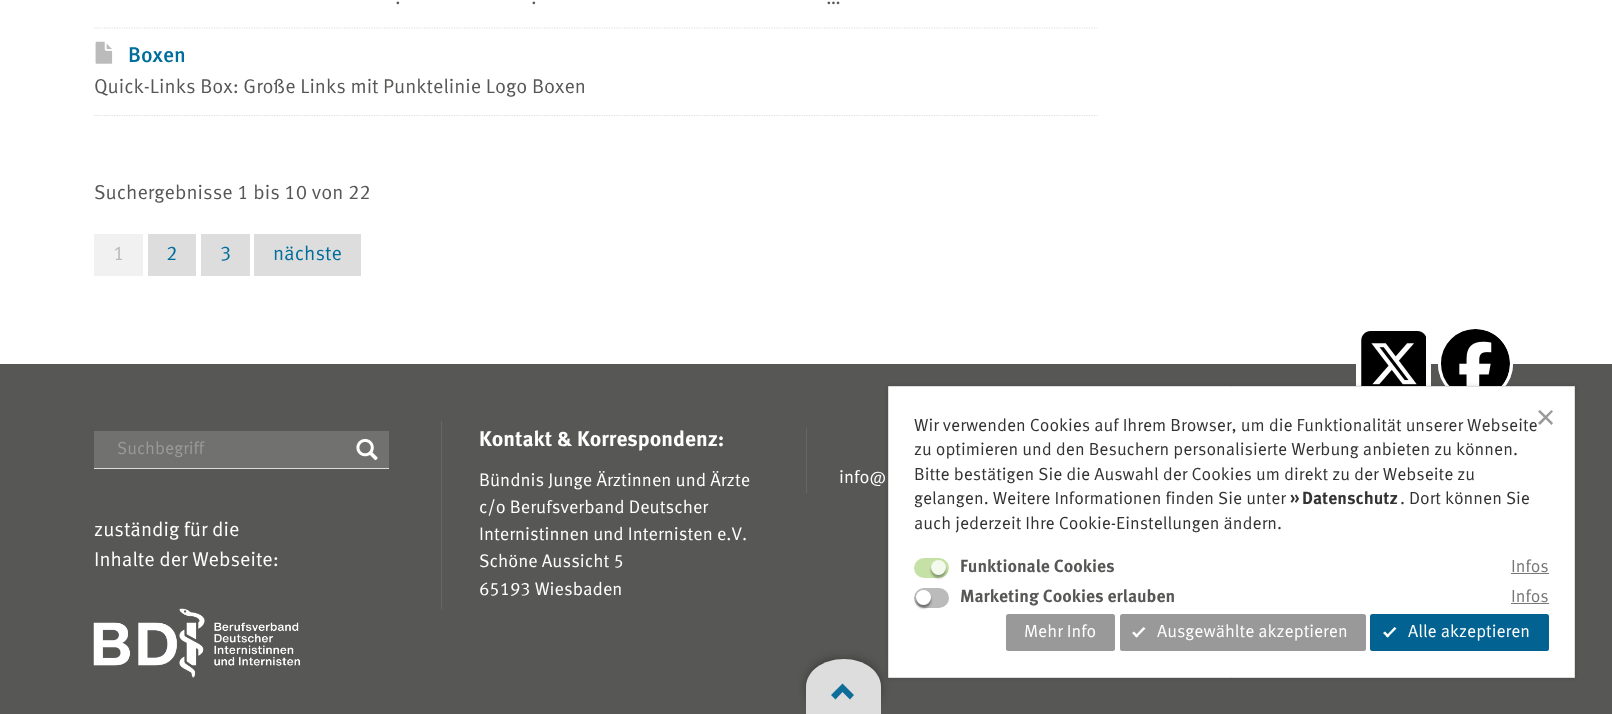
async function draw(canvas) {
	canvas.width = 1612;
	canvas.height = 714;
	const c = canvas.getContext('2d');
	c.miterLimit = 4;
	c.fontKerning = 'normal';
	async function loadImage(src) {
		const img = new Image();
		img.src = src;
		await img.decode();
		return img;
	}

	c.fillStyle = '#fff';
	c.fillRect(0, 0, 1612, 714);
	c.beginPath();
	c.moveTo(94, 28);
	c.lineTo(1097.5, 28);
	c.strokeStyle = '#ddd';
	c.lineWidth = 1.2;
	c.setLineDash([1.25, 1.25]);
	c.stroke();
	c.font = '20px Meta';
	c.fillStyle = '#575756';
	for (const [text, x, y] of [
		['.', 395, 4],
		['.', 531, 4],
		['…', 826, 4],
	]) {
		c.fillText(text, x, y);
	}
	c.beginPath();
	c.moveTo(94, 115.5);
	c.lineTo(1097.5, 115.5);
	c.stroke();
	c.drawImage(await loadImage('img1.png'), 95, 41, 18, 23);
	c.font = '21.25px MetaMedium';
	c.fillStyle = '#006e9b';
	c.fillText('Boxen', 128, 62);
	c.font = '20px Meta';
	c.fillStyle = '#575756';
	c.fillText('Quick-Links Box: Große Links mit Punktelinie Logo Boxen', 94, 93);
	c.fillText('Suchergebnisse 1 bis 10 von 22', 94, 199);
	c.fillStyle = '#f1f1f1';
	c.fillRect(94, 234, 49, 42);
	c.fillStyle = '#bbb';
	c.fillText('1', 113, 260);
	c.fillStyle = '#ddd';
	c.fillRect(148, 234, 48, 42);
	c.fillStyle = '#006e9b';
	c.fillText('2', 166, 260);
	c.fillStyle = '#ddd';
	c.fillRect(201, 234, 49, 42);
	c.fillStyle = '#006e9b';
	c.fillText('3', 220, 260);
	c.fillStyle = '#ddd';
	c.fillRect(254, 234, 107, 42);
	c.fillStyle = '#006e9b';
	c.fillText('nächste', 273, 260);
	c.fillStyle = '#575756';
	c.fillRect(0, 364, 1612, 350);
	c.fillStyle = '#fff';
	c.beginPath();
	c.roundRect(1356, 326, 75, 75, 6);
	c.fill();
	c.drawImage(await loadImage('img2.png'), 1361, 331, 65, 55);
	c.beginPath();
	c.arc(1475.5, 363.5, 37.5, 0, 2 * Math.PI);
	c.fill();
	c.drawImage(await loadImage('img3.png'), 1441, 329, 69, 57);
	c.beginPath();
	c.arc(1475.5, 363.5, 36, 0, 2 * Math.PI);
	c.strokeStyle = '#fff';
	c.lineWidth = 3;
	c.setLineDash([]);
	c.stroke();
	c.fillStyle = '#71716f';
	c.fillRect(94, 431, 295, 37);
	c.fillStyle = '#ddd';
	c.fillRect(94, 468, 295, 1);
	c.font = '17.5px Meta';
	c.fillStyle = '#999';
	c.fillText('Suchbegriff', 117, 454);
	c.drawImage(await loadImage('img4.png'), 356, 438, 22, 23);
	c.font = '20px Meta';
	c.fillStyle = '#fff';
	c.fillText('zuständig für die', 94, 536);
	c.fillText('Inhalte der Webseite:', 94, 566);
	c.drawImage(await loadImage('img5.png'), 93, 608, 207, 70);
	c.fillStyle = '#666';
	c.fillRect(441, 421, 1, 188);
	c.font = 'bold 21.25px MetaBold';
	c.fillStyle = '#fff';
	c.fillText('Kontakt & Korrespondenz:', 479, 446);
	c.font = '18.1px Meta';
	for (const [text, x, y] of [
		['Bündnis Junge Ärztinnen und Ärzte', 479, 486],
		['c/o Berufsverband Deutscher', 479, 513],
		['Internistinnen und Internisten e.V.', 479, 540],
		['Schöne Aussicht 5', 479, 567],
		['65193 Wiesbaden', 479, 595],
	]) {
		c.fillText(text, x, y);
	}
	c.fillStyle = '#666';
	c.fillRect(806, 428, 1, 65);
	c.fillStyle = '#fff';
	c.fillText('info@', 839, 483);
	c.fillStyle = '#00000026';
	c.filter = 'blur(2px)';
	c.beginPath();
	c.rect(888, 386, 687, 292);
	c.fill();
	c.filter = 'none';
	c.save();
	c.beginPath();
	c.moveTo(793, 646);
	c.lineTo(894, 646);
	c.lineTo(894, 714);
	c.lineTo(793, 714);
	c.closePath();
	c.moveTo(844, 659);
	c.bezierCurveTo(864.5, 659, 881, 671.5, 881, 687);
	c.lineTo(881, 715);
	c.lineTo(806, 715);
	c.lineTo(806, 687);
	c.bezierCurveTo(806, 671.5, 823, 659, 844, 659);
	c.closePath();
	c.clip('evenodd');
	c.fillStyle = '#0000004d';
	c.filter = 'blur(4px)';
	c.beginPath();
	c.roundRect(806, 659, 75, 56, 28);
	c.fill();
	c.filter = 'none';
	c.restore();
	c.fillStyle = '#fff';
	c.beginPath();
	c.rect(888.5, 386.5, 686, 291);
	c.fill();
	c.strokeStyle = '#ddd';
	c.lineWidth = 1;
	c.stroke();
	c.font = '17.5px Meta';
	c.fillStyle = '#333';
	for (const [text, x, y] of [
		['Wir verwenden Cookies auf Ihrem Browser, um die Funktionalität unserer Webseite', 914, 431],
		['zu optimieren und den Besuchern personalisierte Werbung anbieten zu können.', 914, 455],
		['Bitte bestätigen Sie die Auswahl der Cookies um direkt zu der Webseite zu', 914, 480],
		['gelangen. Weitere Informationen finden Sie unter', 914, 504],
	]) {
		c.fillText(text, x, y);
	}
	c.font = 'bold 17.5px MetaBold';
	c.fillText('»', 1290, 503);
	c.fillText('Datenschutz', 1302, 504);
	c.font = '17.5px Meta';
	c.fillText('. Dort können Sie', 1400, 504);
	c.fillText('auch jederzeit Ihre Cookie-Einstellungen ändern.', 914, 529);
	c.fillStyle = '#999';
	c.beginPath();
	c.moveTo(1538, 423);
	c.lineTo(1551.5, 410);
	c.lineTo(1553, 411.5);
	c.lineTo(1540, 425);
	c.closePath();
	c.fill();
	c.beginPath();
	c.moveTo(1540, 410);
	c.lineTo(1553, 423);
	c.lineTo(1551.5, 425);
	c.lineTo(1538, 411.5);
	c.closePath();
	c.fill();
	c.fillStyle = '#c5e1a5';
	c.beginPath();
	c.roundRect(914, 558, 35, 20, 10);
	c.fill();
	c.fillStyle = '#00000052';
	c.filter = 'blur(1px)';
	c.beginPath();
	c.roundRect(931, 563, 15, 15, 7.5);
	c.fill();
	c.filter = 'none';
	c.fillStyle = '#f3f9ed';
	c.beginPath();
	c.arc(938.5, 567.5, 7.5, 0, 2 * Math.PI);
	c.fill();
	c.font = 'bold 17.5px MetaBold';
	c.fillStyle = '#575756';
	c.fillText('Funktionale Cookies', 960, 572);
	c.font = '17.5px Meta';
	c.fillStyle = '#777';
	c.fillText('Infos', 1511, 572);
	c.fillRect(1511, 573, 38, 1);
	c.fillStyle = '#bbb';
	c.beginPath();
	c.roundRect(914, 588, 35, 20, 10);
	c.fill();
	c.fillStyle = '#00000066';
	c.filter = 'blur(1px)';
	c.beginPath();
	c.roundRect(916, 593, 15, 15, 7.5);
	c.fill();
	c.filter = 'none';
	c.fillStyle = '#fff';
	c.beginPath();
	c.arc(923.5, 597.5, 7.5, 0, 2 * Math.PI);
	c.fill();
	c.font = 'bold 17.5px MetaBold';
	c.fillStyle = '#575756';
	c.fillText('Marketing Cookies erlauben', 960, 602);
	c.font = '17.5px Meta';
	c.fillStyle = '#777';
	c.fillText('Infos', 1511, 602);
	c.fillRect(1511, 603, 38, 1);
	c.fillStyle = '#999';
	c.beginPath();
	c.roundRect(1006, 614, 109, 37, 2.5);
	c.fill();
	c.fillStyle = '#fff';
	c.fillText('Mehr Info', 1024, 637);
	c.fillStyle = '#999';
	c.beginPath();
	c.roundRect(1120, 614, 246, 37, 2.5);
	c.fill();
	c.fillStyle = '#fff';
	c.beginPath();
	c.moveTo(1143.5, 627);
	c.lineTo(1145.5, 628.5);
	c.lineTo(1136.5, 637.5);
	c.lineTo(1135, 636);
	c.closePath();
	c.fill();
	c.beginPath();
	c.moveTo(1134, 631.5);
	c.lineTo(1138.5, 636);
	c.lineTo(1136.5, 637.5);
	c.lineTo(1132, 633);
	c.closePath();
	c.fill();
	c.fillText('Ausgewählte akzeptieren', 1157, 637);
	c.fillStyle = '#026291';
	c.beginPath();
	c.roundRect(1370, 614, 179, 37, 2.5);
	c.fill();
	c.fillStyle = '#fff';
	c.beginPath();
	c.moveTo(1394.5, 627);
	c.lineTo(1396.5, 628.5);
	c.lineTo(1387.5, 637.5);
	c.lineTo(1386, 636);
	c.closePath();
	c.fill();
	c.beginPath();
	c.moveTo(1385, 631.5);
	c.lineTo(1389.5, 636);
	c.lineTo(1387.5, 637.5);
	c.lineTo(1383, 633);
	c.closePath();
	c.fill();
	c.fillText('Alle akzeptieren', 1408, 637);
	c.fillStyle = '#ffffffcc';
	c.beginPath();
	c.moveTo(844, 659);
	c.bezierCurveTo(864, 659, 881, 671, 881, 687);
	c.lineTo(881, 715);
	c.lineTo(806, 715);
	c.lineTo(806, 687);
	c.bezierCurveTo(806, 671, 823, 659, 844, 659);
	c.closePath();
	c.fill();
	c.fillStyle = '#0f6e99';
	c.beginPath();
	c.moveTo(854, 695);
	c.lineTo(850, 699.5);
	c.lineTo(842.5, 692);
	c.lineTo(835.5, 699.5);
	c.lineTo(831, 695);
	c.lineTo(842.5, 683.5);
	c.closePath();
	c.fill();
}

draw(document.querySelector('canvas'));
